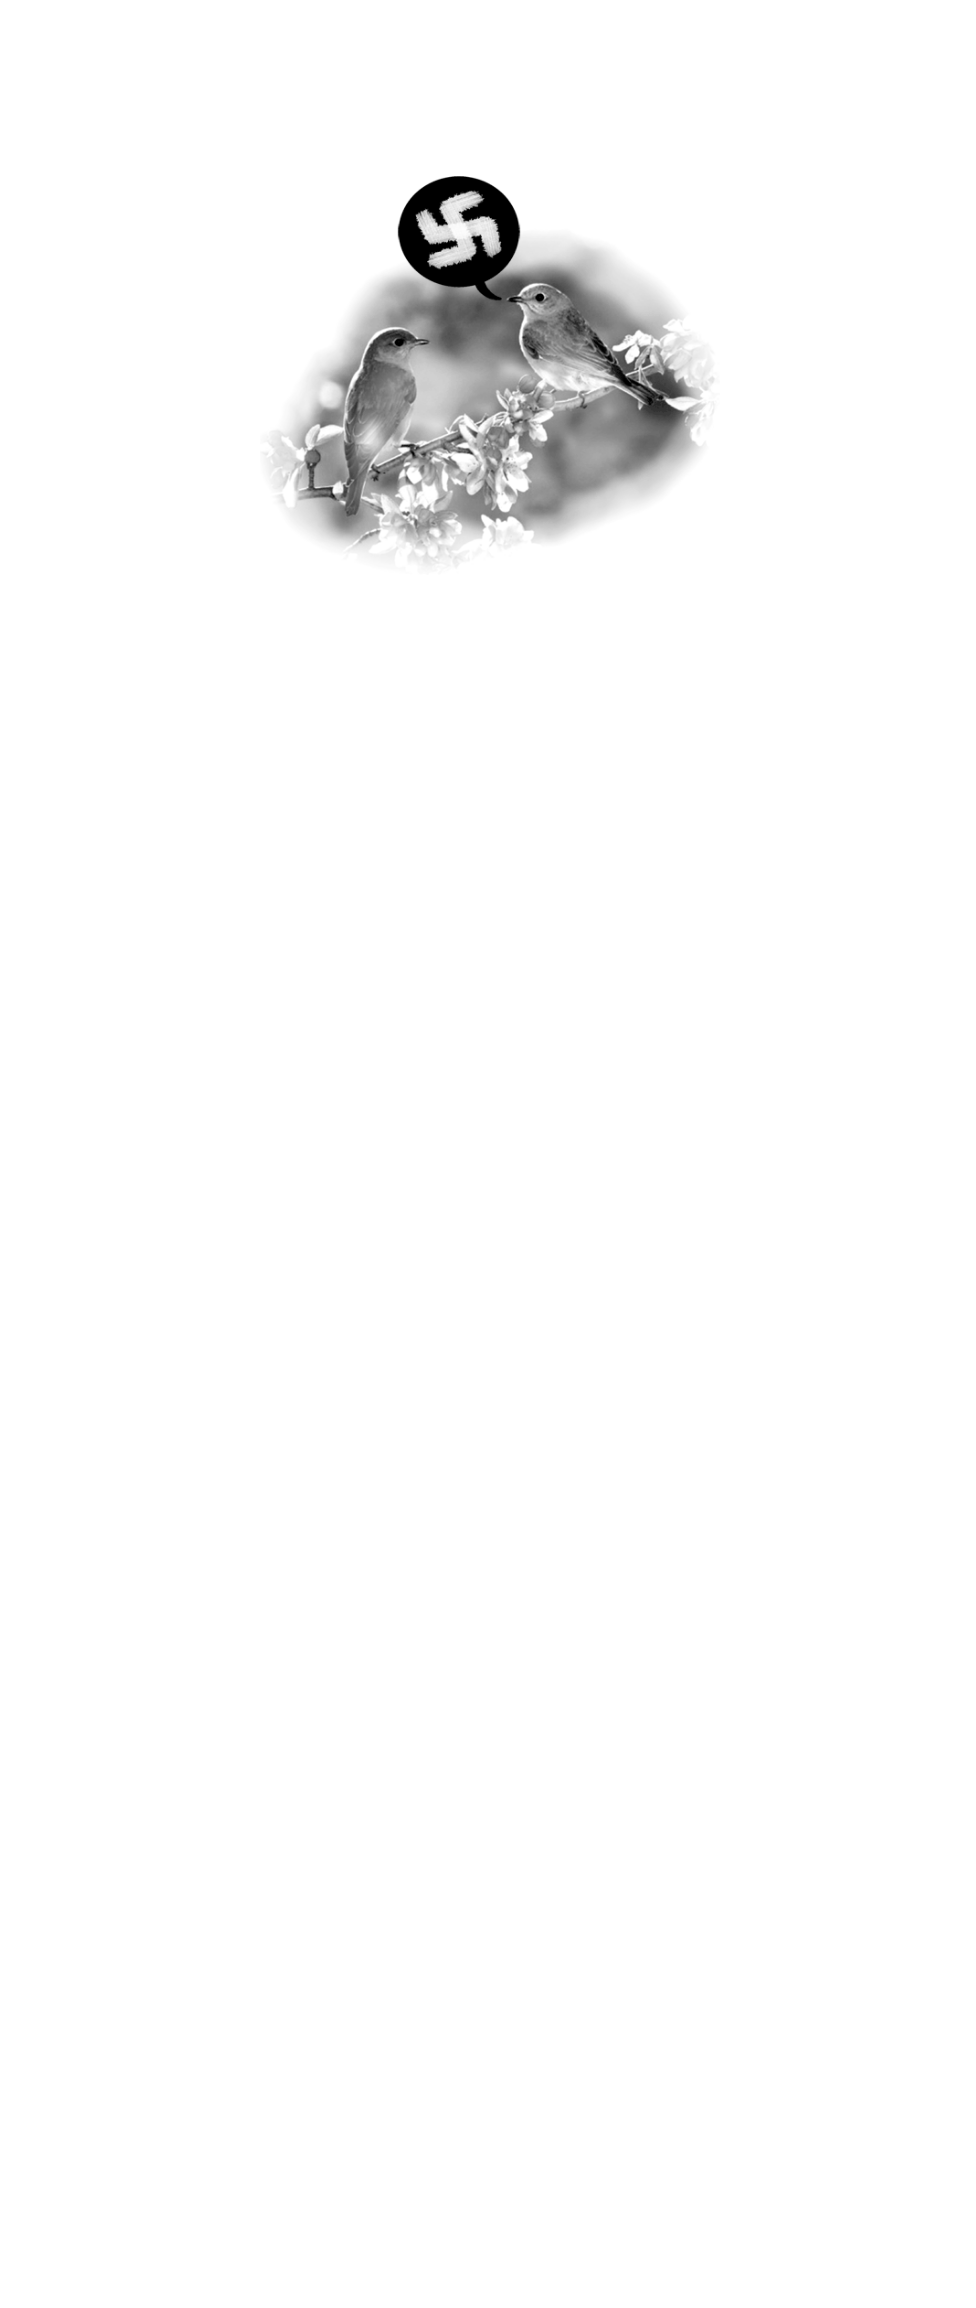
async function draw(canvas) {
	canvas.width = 976;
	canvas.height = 2308;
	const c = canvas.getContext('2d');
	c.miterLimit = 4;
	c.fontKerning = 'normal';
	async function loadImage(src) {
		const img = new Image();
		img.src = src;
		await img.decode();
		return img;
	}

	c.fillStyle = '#fff';
	c.fillRect(0, 0, 976, 2308);
	c.drawImage(await loadImage('img1.png'), 260, 176, 460, 399);
}

draw(document.querySelector('canvas'));
